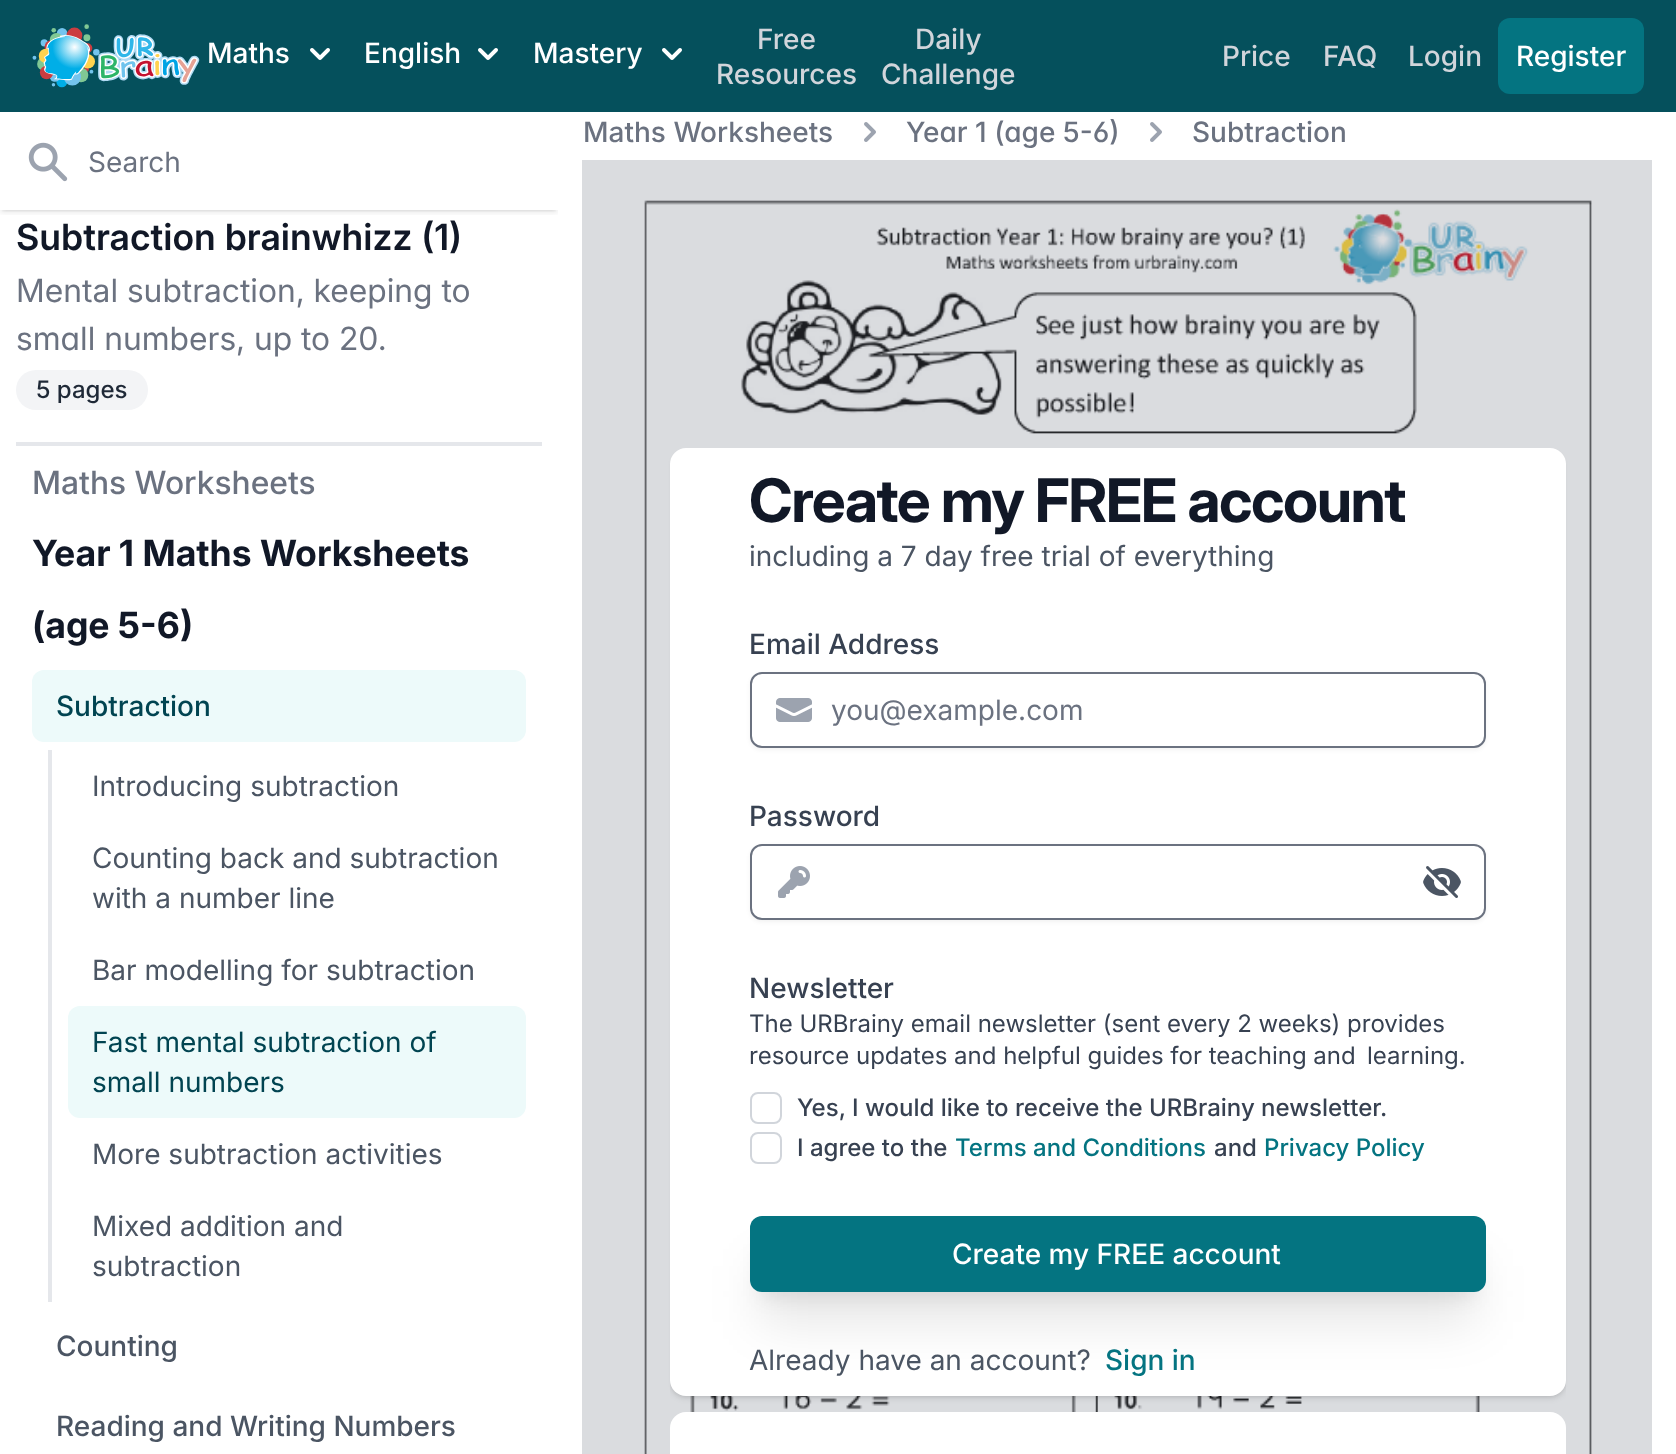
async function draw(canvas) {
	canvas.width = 1676;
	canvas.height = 1454;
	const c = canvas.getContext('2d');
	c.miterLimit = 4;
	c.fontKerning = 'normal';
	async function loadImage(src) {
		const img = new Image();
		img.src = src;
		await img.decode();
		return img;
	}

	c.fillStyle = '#fff';
	c.fillRect(0, 0, 1676, 1454);
	c.fillStyle = '#dadcdf';
	c.fillRect(582, 160, 1070, 1294);
	c.save();
	c.beginPath();
	c.rect(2, 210, 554, 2);
	c.clip();
	c.fillStyle = '#0000001a';
	c.filter = 'blur(2px)';
	c.beginPath();
	c.rect(2, 116, 554, 94);
	c.fill();
	c.filter = 'none';
	c.restore();
	c.save();
	c.beginPath();
	c.rect(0, 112, 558, 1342);
	c.clip();
	c.beginPath();
	c.rect(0, 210, 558, 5);
	c.clip();
	c.fillStyle = '#0000001a';
	c.filter = 'blur(3px)';
	c.beginPath();
	c.rect(0, 114, 558, 98);
	c.fill();
	c.filter = 'none';
	c.restore();
	c.fillStyle = '#05505c';
	c.fillRect(0, 0, 1676, 112);
	c.drawImage(await loadImage('img1.png'), 32, 24, 168, 64);
	c.font = '500 28px Inter';
	c.fillStyle = '#fff';
	c.fillText('Maths', 207, 63);
	c.drawImage(await loadImage('img2.png'), 310, 48, 20, 12);
	c.fillText('English', 364, 63);
	c.drawImage(await loadImage('img2.png'), 478, 48, 20, 12);
	c.fillText('Mastery', 533, 63);
	c.drawImage(await loadImage('img2.png'), 662, 48, 20, 12);
	c.fillStyle = '#d1d5db';
	for (const [text, x, y] of [
		['Free', 757, 49],
		['Resources', 716, 84],
		['Daily', 915, 49],
		['Challenge', 881, 84],
		['Price', 1222, 66],
		['FAQ', 1323, 66],
		['Login', 1408, 66],
	]) {
		c.fillText(text, x, y);
	}
	c.fillStyle = '#047481';
	c.beginPath();
	c.roundRect(1498, 18, 146, 76, 12);
	c.fill();
	c.fillStyle = '#fff';
	c.fillText('Register', 1516, 66);
	c.drawImage(await loadImage('img3.png'), 28, 142, 40, 40);
	c.font = '28px "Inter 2"';
	c.fillStyle = '#6b7280';
	c.fillText('Search', 88, 172);
	c.fillStyle = '#e5e7eb';
	c.fillRect(16, 442, 526, 4);
	c.font = '600 36px Inter';
	c.fillStyle = '#111827';
	c.fillText('Subtraction brainwhizz (1)', 16, 250);
	c.font = '32px Inter';
	c.fillStyle = '#6b7280';
	c.fillText('Mental subtraction, keeping to', 16, 302);
	c.font = '32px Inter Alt';
	c.fillText('small numbers, up to 20.', 16, 350);
	c.fillStyle = '#f3f4f6';
	c.beginPath();
	c.roundRect(16, 370, 132, 40, 20);
	c.fill();
	c.font = '500 24px Inter';
	c.fillStyle = '#1f2937';
	c.fillText('5 pages', 36, 398);
	c.font = '500 32px "Inter 2"';
	c.fillStyle = '#6b7280';
	c.fillText('Maths Worksheets', 32, 494);
	c.font = 'bold 36px Inter';
	c.fillStyle = '#111827';
	c.fillText('Year 1 Maths Worksheets', 32, 566);
	c.fillText('(age 5-6)', 32, 638);
	c.fillStyle = '#edfafa';
	c.beginPath();
	c.roundRect(32, 670, 494, 72, 12);
	c.fill();
	c.font = '500 28px Inter';
	c.fillStyle = '#014451';
	c.fillText('Subtraction', 56, 716);
	c.fillStyle = '#e5e7eb';
	c.fillRect(48, 750, 4, 552);
	c.font = '28px "Inter 2"';
	c.fillStyle = '#4b5563';
	for (const [text, x, y] of [
		['Introducing subtraction', 92, 796],
		['Counting back and subtraction', 92, 868],
		['with a number line', 92, 908],
		['Bar modelling for subtraction', 92, 980],
	]) {
		c.fillText(text, x, y);
	}
	c.fillStyle = '#edfafa';
	c.beginPath();
	c.roundRect(68, 1006, 458, 112, 12);
	c.fill();
	c.fillStyle = '#014451';
	c.fillText('Fast mental subtraction of', 92, 1052);
	c.fillText('small numbers', 92, 1092);
	c.fillStyle = '#4b5563';
	for (const [text, x, y] of [
		['More subtraction activities', 92, 1164],
		['Mixed addition and', 92, 1236],
		['subtraction', 92, 1276],
	]) {
		c.fillText(text, x, y);
	}
	c.font = '500 28px Inter';
	c.fillText('Counting', 56, 1356);
	c.fillText('Reading and Writing Numbers', 56, 1436);
	c.fillStyle = '#6b7280';
	c.fillText('Maths Worksheets', 583, 142);
	c.drawImage(await loadImage('img4.png'), 864, 122, 12, 20);
	c.font = '500 28px Inter Alt';
	c.fillText('Year 1 (age 5-6)', 906, 142);
	c.drawImage(await loadImage('img4.png'), 1150, 122, 12, 20);
	c.font = '500 28px Inter';
	c.fillText('Subtraction', 1192, 142);
	c.drawImage(await loadImage('img5.png'), 644, 200, 948, 1254);
	c.fillStyle = '#0000001a';
	c.filter = 'blur(2px)';
	c.beginPath();
	c.roundRect(672, 452, 892, 944, 14);
	c.fill();
	c.filter = 'none';
	c.save();
	c.beginPath();
	c.roundRect(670, 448, 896, 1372, 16);
	c.clip();
	c.filter = 'blur(3px)';
	c.beginPath();
	c.roundRect(670, 450, 896, 948, 16);
	c.fill();
	c.filter = 'none';
	c.restore();
	c.fillStyle = '#fff';
	c.beginPath();
	c.roundRect(670, 448, 896, 948, 16);
	c.fill();
	c.letterSpacing = '-1.5px';
	c.font = 'bold 60px "Inter 2"';
	c.fillStyle = '#111827';
	c.fillText('Create my FREE account', 749, 522);
	c.letterSpacing = '0px';
	c.font = '28px "Inter 2"';
	c.fillStyle = '#4b5563';
	c.fillText('including a 7 day free trial of everything', 749, 566);
	c.font = '500 28px Inter';
	c.fillStyle = '#374151';
	c.fillText('Email Address', 749, 654);
	c.fillStyle = '#0000000d';
	c.filter = 'blur(2px)';
	c.beginPath();
	c.roundRect(750, 674, 736, 76, 12);
	c.fill();
	c.filter = 'none';
	c.fillStyle = '#fff';
	c.beginPath();
	c.roundRect(751, 673, 734, 74, 11);
	c.fill();
	c.strokeStyle = '#6b7280';
	c.lineWidth = 2;
	c.stroke();
	c.drawImage(await loadImage('img6.png'), 776, 698, 36, 24);
	c.font = '28px "Inter 2"';
	c.fillStyle = '#6b7280';
	c.fillText('you@example.com', 831, 720);
	c.font = '500 28px Inter';
	c.fillStyle = '#374151';
	c.fillText('Password', 749, 826);
	c.fillStyle = '#0000000d';
	c.filter = 'blur(2px)';
	c.beginPath();
	c.roundRect(750, 846, 736, 76, 12);
	c.fill();
	c.filter = 'none';
	c.fillStyle = '#fff';
	c.beginPath();
	c.roundRect(751, 845, 734, 74, 11);
	c.fill();
	c.stroke();
	c.drawImage(await loadImage('img7.png'), 778, 866, 32, 32);
	c.drawImage(await loadImage('img8.png'), 1423, 866, 38, 32);
	c.fillStyle = '#374151';
	c.fillText('Newsletter', 749, 998);
	c.font = '24px "Inter 2"';
	c.fillText('The URBrainy email newsletter (sent every 2 weeks) provides', 749, 1032);
	c.fillText('resource updates and helpful guides for teaching and', 749, 1064);
	c.fillText('learning.', 1367, 1064);
	c.beginPath();
	c.roundRect(751, 1093, 30, 30, 7);
	c.strokeStyle = '#d1d5db';
	c.stroke();
	c.font = '500 24px Inter';
	c.fillText('Yes, I would like to receive the URBrainy newsletter.', 797, 1116);
	c.beginPath();
	c.roundRect(751, 1133, 30, 30, 7);
	c.stroke();
	c.fillText('I agree to the', 797, 1156);
	c.fillStyle = '#047481';
	c.fillText('Terms and Conditions', 955, 1156);
	c.fillStyle = '#374151';
	c.fillText('and', 1214, 1156);
	c.fillStyle = '#047481';
	c.fillText('Privacy Policy', 1264, 1156);
	c.fillStyle = '#0000001a';
	c.filter = 'blur(10px)';
	c.beginPath();
	c.rect(762, 1244, 712, 52);
	c.fill();
	c.filter = 'none';
	c.filter = 'blur(25px)';
	c.beginPath();
	c.roundRect(760, 1266, 716, 56, 2);
	c.fill();
	c.filter = 'none';
	c.fillStyle = '#047481';
	c.beginPath();
	c.roundRect(750, 1216, 736, 76, 12);
	c.fill();
	c.font = '500 28px Inter';
	c.fillStyle = '#fff';
	c.fillText('Create my FREE account', 952, 1264);
	c.font = '28px "Inter 2"';
	c.fillStyle = '#4b5563';
	c.fillText('Already have an account?', 749, 1370);
	c.font = '500 28px Inter';
	c.fillStyle = '#047481';
	c.fillText('Sign in', 1105, 1370);
	c.fillStyle = '#fff';
	c.beginPath();
	c.roundRect(670, 1412, 896, 42, [16, 16, 0, 0]);
	c.fill();
}

draw(document.querySelector('canvas'));
